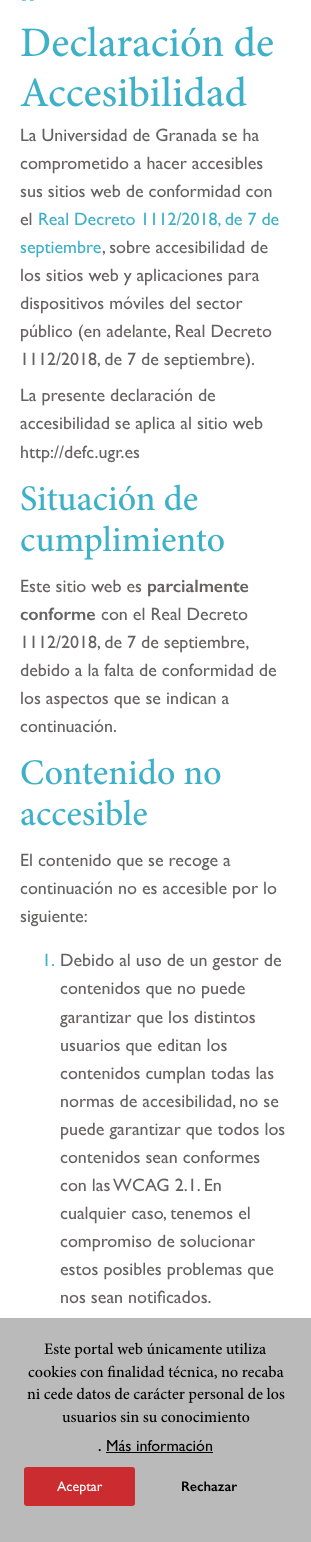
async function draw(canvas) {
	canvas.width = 311;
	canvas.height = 1542;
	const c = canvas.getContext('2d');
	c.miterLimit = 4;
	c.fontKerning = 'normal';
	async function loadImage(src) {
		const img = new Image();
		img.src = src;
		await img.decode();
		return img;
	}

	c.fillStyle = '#fff';
	c.fillRect(0, 0, 311, 1542);
	c.drawImage(await loadImage('img1.png'), 21, 0, 13, 1);
	c.drawImage(await loadImage('img2.png'), 21, 26, 252, 31);
	c.drawImage(await loadImage('img3.png'), 20, 76, 227, 31);
	c.font = '18px Gill Sans';
	c.fillStyle = '#656262';
	for (const [text, x, y] of [
		['La Universidad de Granada se ha', 20, 141],
		['comprometido a hacer accesibles', 20, 169],
		['sus sitios web de conformidad con', 20, 197],
		['el', 20, 225],
	]) {
		c.fillText(text, x, y);
	}
	c.fillStyle = '#3eb1c8';
	c.fillText('Real Decreto 1112/2018, de 7 de', 38, 225);
	c.fillText('septiembre', 20, 253);
	c.fillStyle = '#656262';
	for (const [text, x, y] of [
		[', sobre accesibilidad de', 102, 253],
		['los sitios web y aplicaciones para', 20, 281],
		['dispositivos móviles del sector', 20, 309],
		['público (en adelante, Real Decreto', 20, 337],
		['1112/2018, de 7 de septiembre).', 20, 365],
		['La presente declaración de', 20, 401],
		['accesibilidad se aplica al sitio web', 20, 429],
		['http://defc.ugr.es', 20, 458],
	]) {
		c.fillText(text, x, y);
	}
	c.drawImage(await loadImage('img4.png'), 21, 484, 177, 27);
	c.drawImage(await loadImage('img5.png'), 21, 525, 203, 35);
	c.fillText('Este sitio web es', 20, 592);
	c.font = '600 18px Gill Sans';
	c.fillText('parcialmente', 147, 592);
	c.fillText('conforme', 20, 620);
	c.font = '18px Gill Sans';
	for (const [text, x, y] of [
		['con el Real Decreto', 101, 620],
		['1112/2018, de 7 de septiembre,', 20, 648],
		['debido a la falta de conformidad de', 20, 676],
		['los aspectos que se indican a', 20, 704],
		['continuación.', 20, 732],
	]) {
		c.fillText(text, x, y);
	}
	c.drawImage(await loadImage('img6.png'), 21, 758, 200, 27);
	c.drawImage(await loadImage('img7.png'), 21, 799, 126, 27);
	for (const [text, x, y] of [
		['El contenido que se recoge a', 20, 866],
		['continuación no es accesible por lo', 20, 894],
		['siguiente:', 20, 922],
	]) {
		c.fillText(text, x, y);
	}
	c.fillStyle = '#3eb1c8';
	c.fillText('1.', 42, 966);
	c.fillStyle = '#656262';
	for (const [text, x, y] of [
		['Debido al uso de un gestor de', 60, 966],
		['contenidos que no puede', 60, 994],
		['garantizar que los distintos', 60, 1023],
		['usuarios que editan los', 60, 1051],
		['contenidos cumplan todas las', 60, 1079],
		['normas de accesibilidad, no se', 60, 1107],
		['puede garantizar que todos los', 60, 1135],
		['contenidos sean conformes', 60, 1163],
		['con las WCAG 2.1. En', 60, 1191],
		['cualquier caso, tenemos el', 60, 1219],
		['compromiso de solucionar', 60, 1247],
		['estos posibles problemas que', 60, 1275],
		['nos sean notificados.', 60, 1303],
	]) {
		c.fillText(text, x, y);
	}
	c.fillStyle = '#bababa';
	c.fillRect(0, 1318, 311, 224);
	c.drawImage(await loadImage('img8.png'), 44, 1342, 222, 16);
	c.drawImage(await loadImage('img9.png'), 28, 1365, 256, 14);
	c.drawImage(await loadImage('img10.png'), 27, 1387, 258, 16);
	c.drawImage(await loadImage('img11.png'), 62, 1411, 188, 12);
	c.font = '600 14px Gill Sans';
	c.fillStyle = '#000';
	c.fillText('.', 98, 1451);
	c.font = '16px Gill Sans';
	c.fillText('Más información', 106, 1451);
	c.fillRect(106, 1452, 107, 1);
	c.fillStyle = '#cb2c30';
	c.beginPath();
	c.roundRect(24, 1467, 111, 39, 3);
	c.fill();
	c.font = '14px Gill Sans';
	c.fillStyle = '#fff';
	c.fillText('Aceptar', 57, 1491);
	c.font = '600 14px Gill Sans';
	c.fillStyle = '#000';
	c.fillText('Rechazar', 181, 1491);
}

draw(document.querySelector('canvas'));
